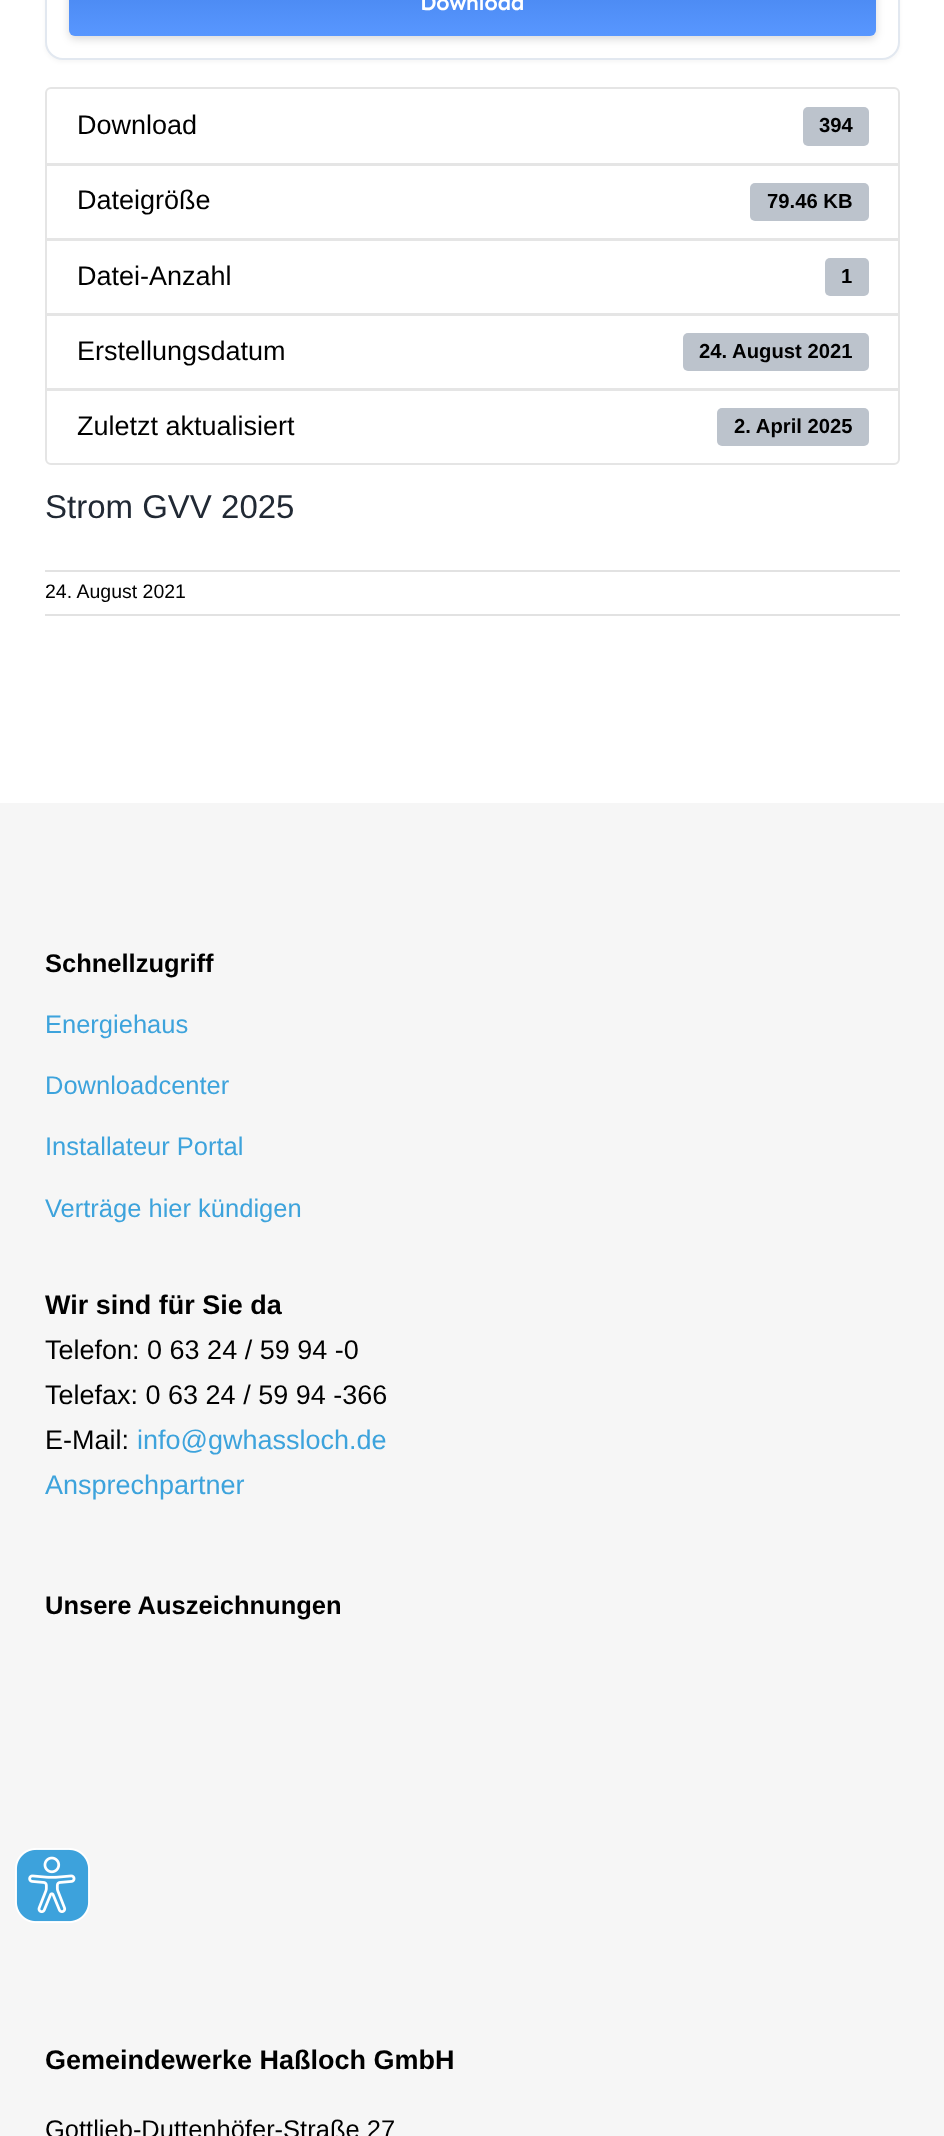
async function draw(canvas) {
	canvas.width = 944;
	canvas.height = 2136;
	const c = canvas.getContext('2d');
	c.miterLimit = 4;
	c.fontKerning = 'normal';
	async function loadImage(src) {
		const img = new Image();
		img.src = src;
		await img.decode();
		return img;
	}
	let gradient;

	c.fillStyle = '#fff';
	c.fillRect(0, 0, 944, 2136);
	c.fillStyle = '#0000000a';
	c.filter = 'blur(2px)';
	c.beginPath();
	c.roundRect(45, -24, 855, 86, 18);
	c.fill();
	c.filter = 'none';
	c.fillStyle = '#fff';
	c.beginPath();
	c.roundRect(46, -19, 853, 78, 17);
	c.fill();
	c.strokeStyle = '#e2e8f0';
	c.lineWidth = 2;
	c.stroke();
	c.fillStyle = '#00000026';
	c.filter = 'blur(4.5px)';
	c.beginPath();
	c.roundRect(69, -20, 807, 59, 6);
	c.fill();
	c.filter = 'none';
	c.fillStyle = '#4a8eff';
	c.beginPath();
	c.roundRect(69, -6, 807, 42, 6);
	c.fill();
	gradient = c.createLinearGradient(473, -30, 473, 36);
	gradient.addColorStop(0, '#00000014');
	gradient.addColorStop(1, '#ffffff14');
	c.fillStyle = gradient;
	c.beginPath();
	c.roundRect(69, -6, 807, 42, 6);
	c.fill();
	c.letterSpacing = '-0.5px';
	c.font = '600 22.5px Sen';
	c.fillStyle = '#fff';
	c.fillText('Download', 420, 10);
	c.beginPath();
	c.roundRect(46, 88, 853, 76, [5, 5, 0, 0]);
	c.strokeStyle = '#e5e5e5';
	c.stroke();
	c.letterSpacing = '0px';
	c.font = '27px Liberation Sans';
	c.fillStyle = '#000';
	c.fillText('Download', 77, 134);
	c.fillStyle = '#bcc3cc';
	c.beginPath();
	c.roundRect(803, 107, 66, 39, 5);
	c.fill();
	c.font = 'bold 20.25px Liberation Sans';
	c.fillStyle = '#000';
	c.fillText('394', 819, 132);
	c.strokeRect(46, 165, 853, 74);
	c.font = '27px Liberation Sans';
	c.fillText('Dateigröße', 77, 209);
	c.fillStyle = '#bcc3cc';
	c.beginPath();
	c.roundRect(750, 183, 119, 38, 5);
	c.fill();
	c.font = 'bold 20.25px Liberation Sans';
	c.fillStyle = '#000';
	c.fillText('79.46 KB', 767, 208);
	c.strokeRect(46, 240, 853, 74);
	c.font = '27px Liberation Sans';
	c.fillText('Datei-Anzahl', 77, 285);
	c.fillStyle = '#bcc3cc';
	c.beginPath();
	c.roundRect(825, 258, 44, 38, 5);
	c.fill();
	c.font = 'bold 20.25px Liberation Sans';
	c.fillStyle = '#000';
	c.fillText('1', 841, 283);
	c.strokeRect(46, 315, 853, 74);
	c.font = '27px Liberation Sans';
	c.fillText('Erstellungsdatum', 77, 360);
	c.fillStyle = '#bcc3cc';
	c.beginPath();
	c.roundRect(683, 333, 186, 38, 5);
	c.fill();
	c.font = 'bold 20.25px Liberation Sans';
	c.fillStyle = '#000';
	c.fillText('24. August 2021', 699, 358);
	c.fillStyle = '#fff';
	c.beginPath();
	c.roundRect(46, 390, 853, 74, [0, 0, 5, 5]);
	c.fill();
	c.stroke();
	c.font = '27px Liberation Sans';
	c.fillStyle = '#000';
	c.fillText('Zuletzt aktualisiert', 77, 435);
	c.fillStyle = '#bcc3cc';
	c.beginPath();
	c.roundRect(717, 408, 152, 38, 5);
	c.fill();
	c.font = 'bold 20.25px Liberation Sans';
	c.fillStyle = '#000';
	c.fillText('2. April 2025', 734, 433);
	c.font = '33px Liberation Sans';
	c.fillStyle = '#212934';
	c.fillText('Strom GVV 2025', 45, 518);
	c.fillStyle = '#e2e2e2';
	c.fillRect(45, 570, 855, 2);
	c.fillRect(45, 614, 855, 2);
	c.font = '19.5px Liberation Sans';
	c.fillStyle = '#000';
	c.fillText('24. August 2021', 45, 598);
	c.fillStyle = '#f6f6f6';
	c.fillRect(0, 803, 944, 1333);
	c.font = 'bold 25.5px Liberation Sans';
	c.fillStyle = '#000';
	c.fillText('Schnellzugriff', 45, 972);
	c.font = '25.5px Liberation Sans';
	c.fillStyle = '#3da3dc';
	for (const [text, x, y] of [
		['Energiehaus', 45, 1033],
		['Downloadcenter', 45, 1094],
		['Installateur Portal', 45, 1155],
		['Verträge hier kündigen', 45, 1217],
	]) {
		c.fillText(text, x, y);
	}
	c.font = 'bold 27px Liberation Sans';
	c.fillStyle = '#000';
	c.fillText('Wir sind für Sie da', 45, 1314);
	c.font = '27px Liberation Sans';
	for (const [text, x, y] of [
		['Telefon: 0 63 24 / 59 94 -0', 45, 1359],
		['Telefax: 0 63 24 / 59 94 -366', 45, 1404],
		['E-Mail:', 45, 1449],
	]) {
		c.fillText(text, x, y);
	}
	c.fillStyle = '#3da3dc';
	c.fillText('info@gwhassloch.de', 137, 1449);
	c.fillText('Ansprechpartner', 45, 1494);
	c.font = 'bold 25.5px Liberation Sans';
	c.fillStyle = '#000';
	c.fillText('Unsere Auszeichnungen', 45, 1614);
	c.font = 'bold 27px Liberation Sans';
	c.fillText('Gemeindewerke Haßloch GmbH', 45, 2069);
	c.font = '25.5px Liberation Sans';
	c.fillText('Gottlieb-Duttenhöfer-Straße 27', 45, 2138);
	c.drawImage(await loadImage('img1.png'), 15, 1848, 75, 75);
}

draw(document.querySelector('canvas'));
